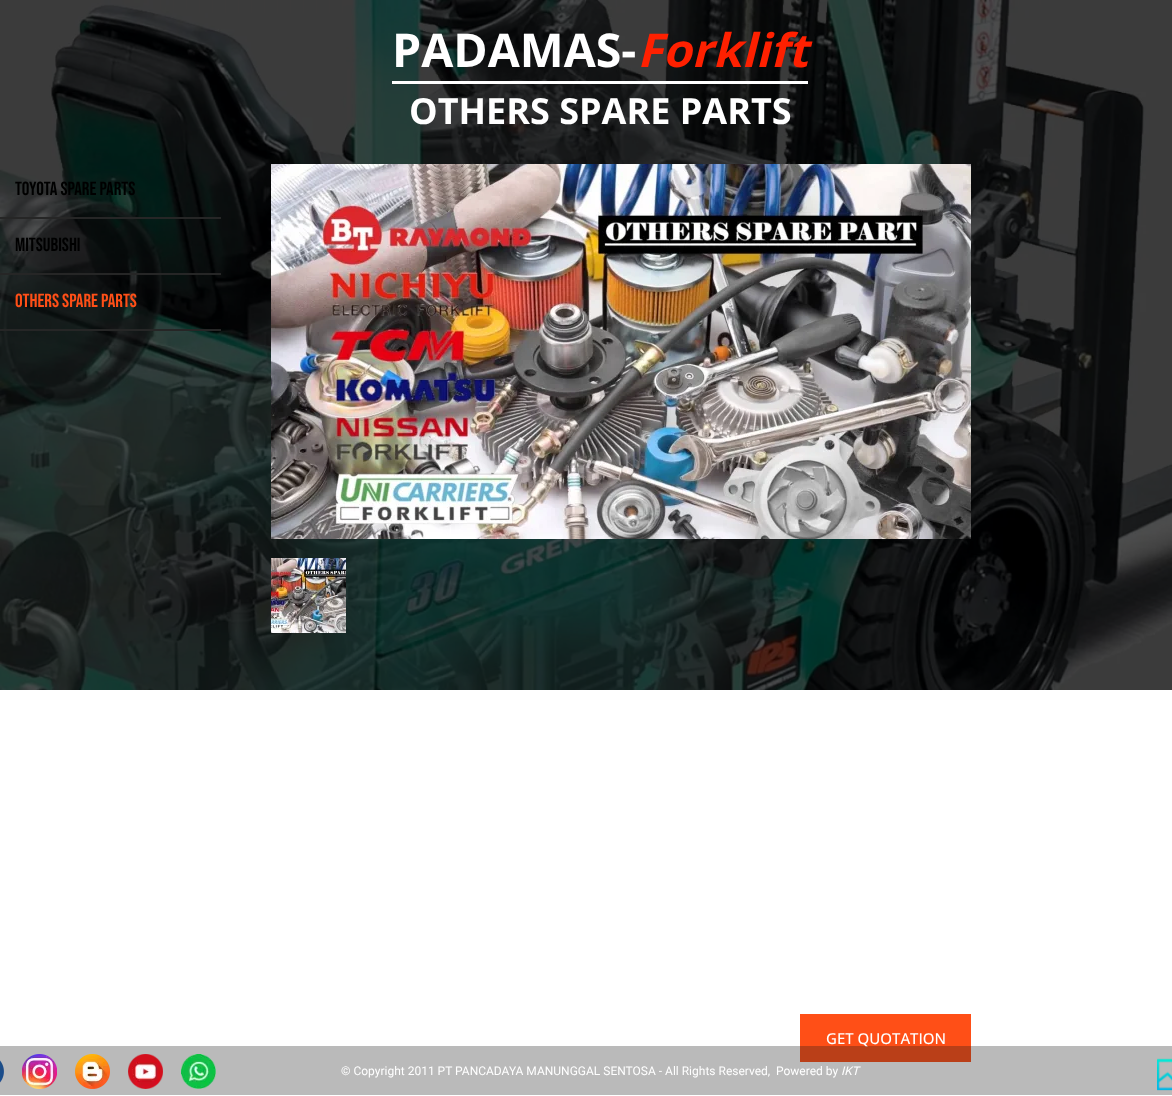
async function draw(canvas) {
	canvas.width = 1172;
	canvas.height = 1096;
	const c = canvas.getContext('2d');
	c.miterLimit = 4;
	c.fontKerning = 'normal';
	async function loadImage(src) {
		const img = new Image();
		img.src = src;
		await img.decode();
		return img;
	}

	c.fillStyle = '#fff';
	c.fillRect(0, 0, 1172, 1096);
	c.fillStyle = '#000';
	c.fillRect(0, 0, 1172, 690);
	c.drawImage(await loadImage('img1.png'), 0, 0, 1172, 690);
	c.font = 'bold 46.5px Open Sans';
	c.fillStyle = '#fff';
	c.fillText('PADAMAS-', 392, 67);
	c.font = 'italic bold 46.5px Open Sans';
	c.fillStyle = '#ff2000';
	c.fillText('Forklift', 637, 67);
	c.fillStyle = '#fff';
	c.fillRect(392, 81, 416, 3);
	c.font = 'bold 36px Open Sans';
	c.fillText('OTHERS SPARE PARTS', 409, 124);
	c.fillStyle = '#262626';
	c.fillRect(0, 217, 221, 2);
	c.font = '19px Bebas Neue';
	c.fillStyle = '#000';
	c.fillText('Toyota Spare Parts', 15, 195);
	c.fillStyle = '#262626';
	c.fillRect(0, 273, 221, 2);
	c.fillStyle = '#000';
	c.fillText('Mitsubishi', 15, 251);
	c.fillStyle = '#262626';
	c.fillRect(0, 329, 221, 2);
	c.fillStyle = '#ff4f17';
	c.fillText('Others Spare Parts', 15, 307);
	c.drawImage(await loadImage('img2.png'), 271, 164, 700, 375);
	c.drawImage(await loadImage('img3.png'), 271, 558, 75, 75);
	c.fillRect(800, 1014, 171, 48);
	c.font = '500 15px Open Sans';
	c.fillStyle = '#fff';
	c.fillText('GET QUOTATION', 826, 1044);
	c.fillStyle = '#1c1c1c4d';
	c.fillRect(0, 1046, 1172, 49);
	c.drawImage(await loadImage('img4.png'), 0, 1060, 4, 23);
	c.drawImage(await loadImage('img5.png'), 22, 1054, 35, 35);
	c.drawImage(await loadImage('img6.png'), 75, 1054, 35, 35);
	c.drawImage(await loadImage('img7.png'), 128, 1054, 35, 35);
	c.drawImage(await loadImage('img8.png'), 181, 1054, 35, 35);
	c.font = '12px Roboto';
	c.fillStyle = '#fff';
	c.fillText('© Copyright 2011 PT PANCADAYA MANUNGGAL SENTOSA - All Rights Reserved,', 341, 1075);
	c.fillText('Powered by', 776, 1075);
	c.font = 'italic 12px Roboto';
	c.fillText('IKT', 841, 1075);
	c.drawImage(await loadImage('img9.png'), 1157, 1058, 15, 33);
}

draw(document.querySelector('canvas'));
